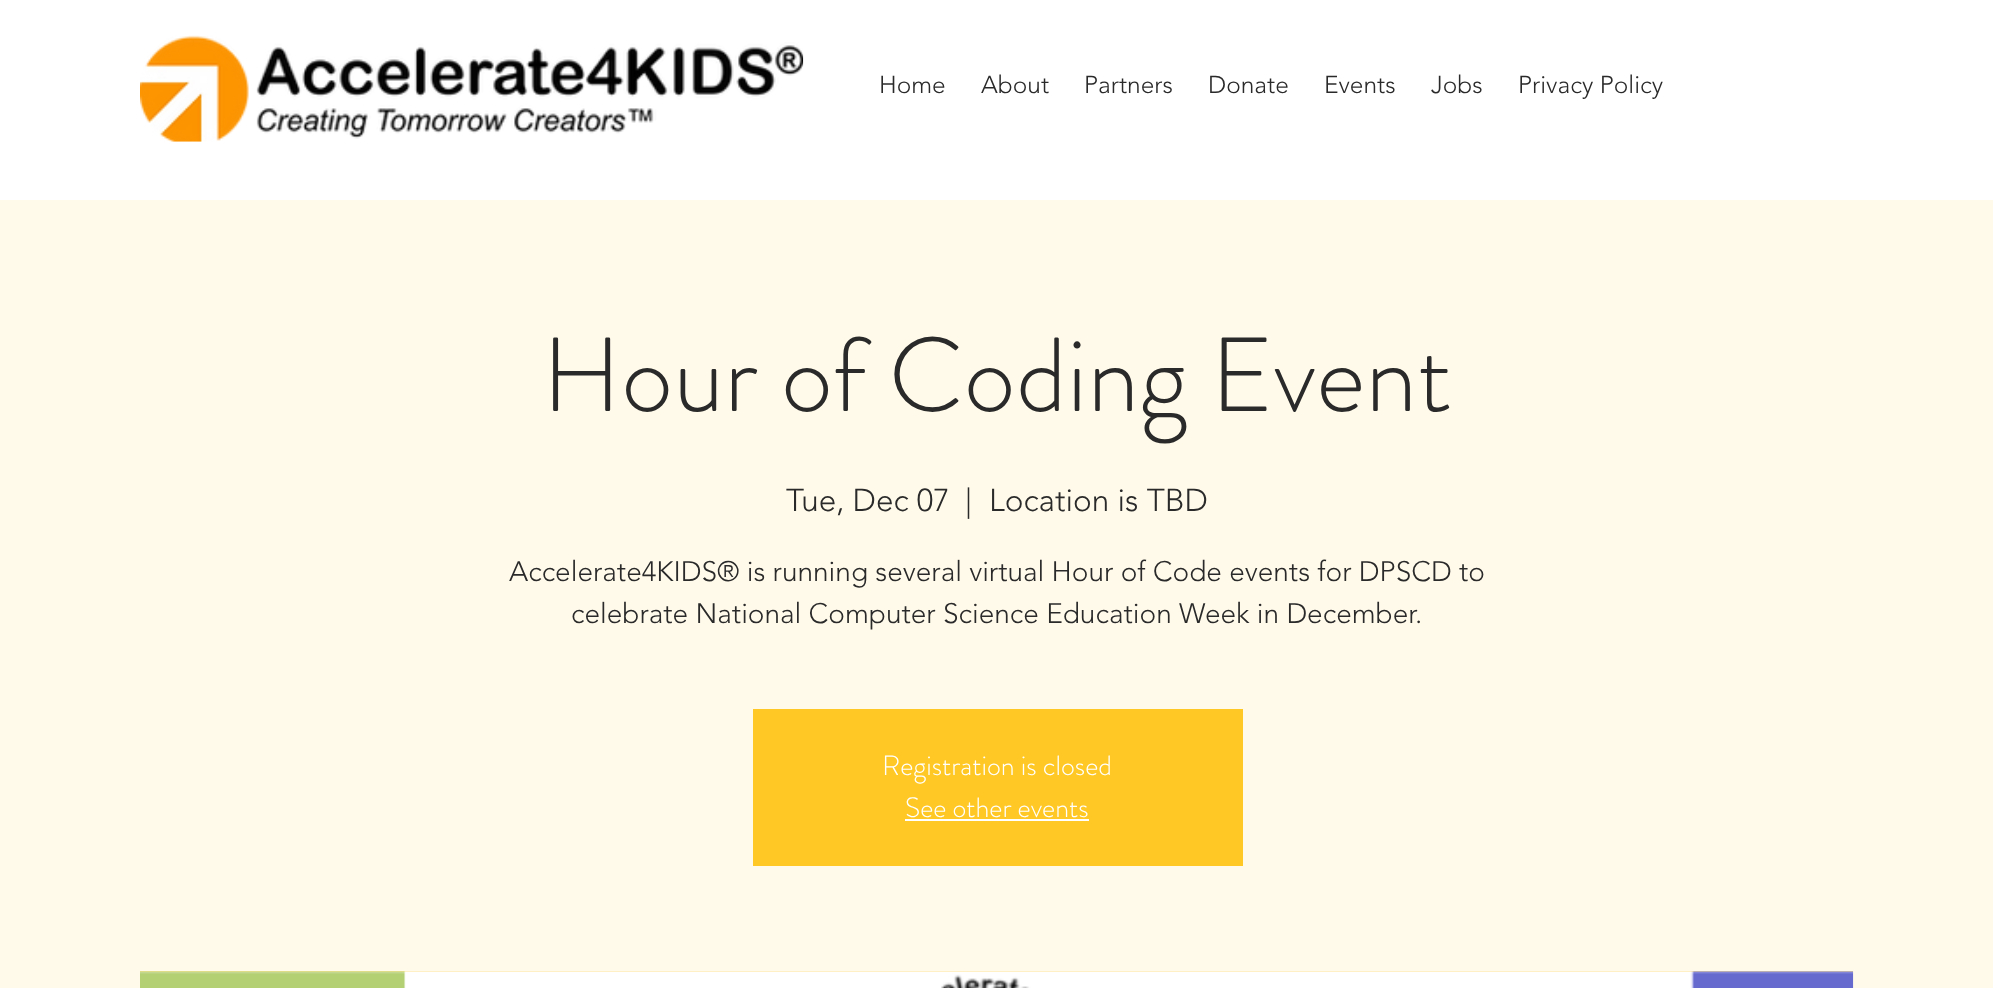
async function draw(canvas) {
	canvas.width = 1993;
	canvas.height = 988;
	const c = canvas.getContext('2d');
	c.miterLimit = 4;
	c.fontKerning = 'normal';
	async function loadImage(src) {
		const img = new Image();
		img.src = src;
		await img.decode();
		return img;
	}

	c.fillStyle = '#fff';
	c.fillRect(0, 0, 1993, 988);
	c.drawImage(await loadImage('img1.png'), 140, 35, 664, 107);
	c.font = '300 24.5px "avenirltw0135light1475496"';
	c.fillStyle = '#2a2a2a';
	for (const [text, x, y] of [
		['Home', 879, 93],
		['About', 981, 93],
		['Partners', 1084, 93],
		['Donate', 1208, 93],
		['Events', 1324, 93],
		['Jobs', 1431, 93],
		['Privacy Policy', 1518, 93],
	]) {
		c.fillText(text, x, y);
	}
	c.fillStyle = '#fffaea';
	c.fillRect(0, 200, 1993, 788);
	c.font = '300 105px "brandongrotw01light"';
	c.fillStyle = '#2a2a2a';
	c.fillText('Hour of Coding Event', 542, 411);
	c.font = '300 31.5px "avenirltw0135light1475496"';
	for (const [text, x, y] of [
		['Tue, Dec 07', 786, 511],
		['|', 965, 511],
		['Location is TBD', 989, 511],
	]) {
		c.fillText(text, x, y);
	}
	c.font = '300 28px "avenirltw0135light1475496"';
	c.fillText('Accelerate4KIDS® is running several virtual Hour of Code events for DPSCD to', 509, 581);
	c.fillText('celebrate National Computer Science Education Week in December.', 571, 623);
	c.fillStyle = '#ffc824';
	c.fillRect(753, 709, 490, 157);
	c.font = '300 28px "brandongrotw01light"';
	c.fillStyle = '#fff';
	c.fillText('Registration is closed', 882, 775);
	c.fillText('See other events', 905, 817);
	c.fillRect(905, 819, 184, 2);
	c.fillStyle = '#ffde7a';
	c.fillRect(140, 971, 1713, 1);
	c.drawImage(await loadImage('img2.png'), 140, 971, 1714, 17);
}

draw(document.querySelector('canvas'));
